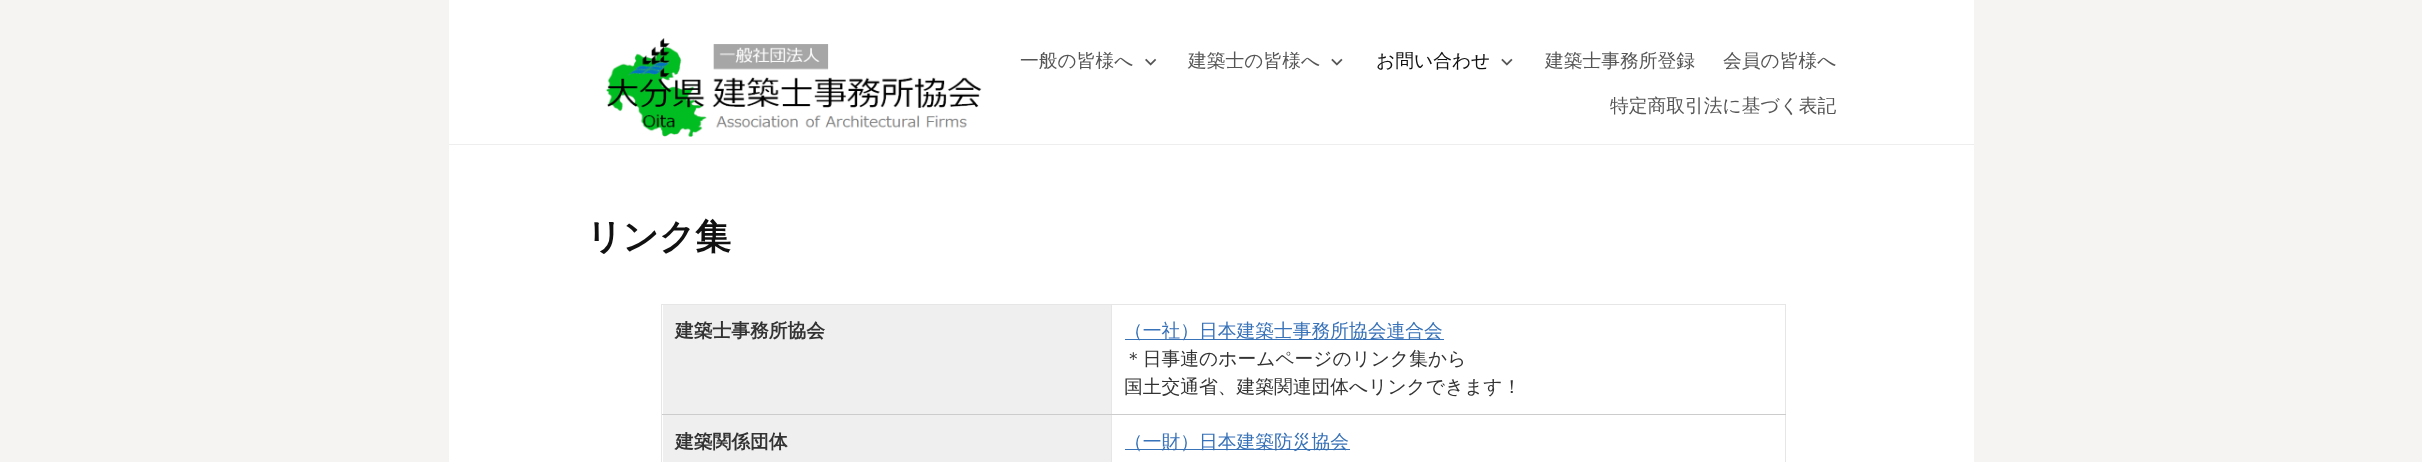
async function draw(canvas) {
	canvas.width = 2422;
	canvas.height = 462;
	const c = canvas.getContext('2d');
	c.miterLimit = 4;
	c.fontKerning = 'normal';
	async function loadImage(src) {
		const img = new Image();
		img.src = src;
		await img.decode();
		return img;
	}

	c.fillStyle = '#f5f4f2';
	c.fillRect(0, 0, 2422, 462);
	c.fillStyle = '#fff';
	c.fillRect(449, 0, 1525, 462);
	c.fillStyle = '#eee';
	c.fillRect(449, 144, 1525, 1);
	c.drawImage(await loadImage('img1.png'), 606, 38, 376, 99);
	c.font = '500 18.75px WenQuanYi Zen Hei';
	c.fillStyle = '#555';
	c.fillText('一般の皆様へ', 1020, 67);
	c.drawImage(await loadImage('img2.png'), 1145, 58, 12, 8);
	c.fillText('建築士の皆様へ', 1188, 67);
	c.drawImage(await loadImage('img3.png'), 1331, 58, 12, 8);
	c.fillStyle = '#111';
	c.fillText('お問い合わせ', 1376, 67);
	c.drawImage(await loadImage('img3.png'), 1501, 58, 12, 8);
	c.fillStyle = '#555';
	for (const [text, x, y] of [
		['建築士事務所登録', 1545, 67],
		['会員の皆様へ', 1723, 67],
		['特定商取引法に基づく表記', 1610, 112],
	]) {
		c.fillText(text, x, y);
	}
	c.letterSpacing = '-0.5px';
	c.font = 'bold 36px WenQuanYi Zen Hei';
	c.fillStyle = '#111';
	c.fillText('リンク集', 586, 249);
	for (const [x, y, w, h, color] of [
		[663, 305, 448, 109, '#efefef'],
		[1111, 304, 675, 1, '#e6e6e6'],
		[1785, 414, 1, 48, '#e6e6e6'],
		[1785, 304, 1, 111, '#e6e6e6'],
		[1111, 414, 1, 48, '#e6e6e6'],
		[1111, 414, 675, 1, '#ccc'],
		[1111, 304, 1, 111, '#e6e6e6'],
		[661, 304, 452, 1, '#e6e6e6'],
		[661, 414, 1, 48, '#e6e6e6'],
		[661, 414, 452, 1, '#ccc'],
		[661, 304, 1, 111, '#e6e6e6'],
	]) {
		c.fillStyle = color;
		c.fillRect(x, y, w, h);
	}
	c.letterSpacing = '0px';
	c.font = 'bold 18.75px WenQuanYi Zen Hei';
	c.fillStyle = '#333';
	c.fillText('建築士事務所協会', 675, 337);
	c.fillStyle = '#3872b8';
	c.fillRect(1125, 339, 319, 1);
	c.font = '500 18.75px WenQuanYi Zen Hei';
	c.fillText('（一社）日本建築士事務所協会連合会', 1124, 337);
	c.fillStyle = '#333';
	c.fillText('＊日事連のホームページのリンク集から', 1124, 365);
	c.fillText('国土交通省、建築関連団体へリンクできます！', 1124, 393);
	c.fillStyle = '#efefef';
	c.fillRect(663, 415, 448, 47);
	c.font = 'bold 18.75px WenQuanYi Zen Hei';
	c.fillStyle = '#333';
	c.fillText('建築関係団体', 675, 448);
	c.fillStyle = '#3872b8';
	c.fillRect(1125, 449, 225, 1);
	c.font = '500 18.75px WenQuanYi Zen Hei';
	c.fillText('（一財）日本建築防災協会', 1124, 448);
}

draw(document.querySelector('canvas'));
